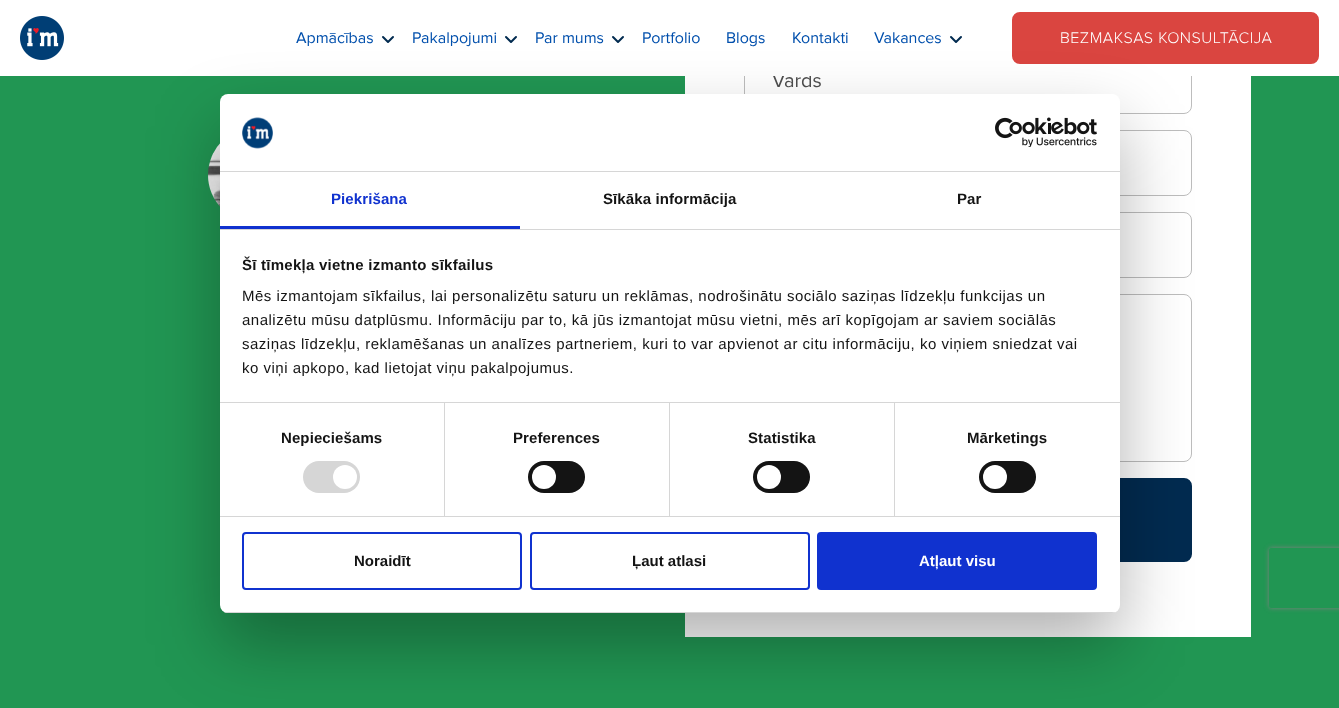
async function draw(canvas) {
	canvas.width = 1339;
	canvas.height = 708;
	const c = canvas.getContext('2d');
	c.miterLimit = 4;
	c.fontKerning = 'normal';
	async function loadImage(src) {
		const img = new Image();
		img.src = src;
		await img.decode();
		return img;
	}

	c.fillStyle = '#219653';
	c.fillRect(0, 0, 1339, 708);
	c.fillStyle = '#fff';
	c.fillRect(685, 76, 566, 561);
	c.beginPath();
	c.roundRect(744.5, 48.5, 447, 65, 7.5);
	c.strokeStyle = '#bdbdbd';
	c.stroke();
	c.font = '20px Proxima Nova';
	c.fillStyle = '#4f4f4f';
	c.fillText('Vārds', 772, 87);
	c.fillStyle = '#fff';
	c.fillRect(0, 0, 1339, 76);
	c.drawImage(await loadImage('img1.png'), 20, 16, 44, 44);
	c.font = '16px Proxima Nova';
	c.fillStyle = '#004fac';
	c.fillText('Apmācības', 296, 43);
	c.beginPath();
	c.moveTo(383, 37);
	c.lineTo(388, 42);
	c.lineTo(393, 37);
	c.strokeStyle = '#022b50';
	c.lineWidth = 2;
	c.lineCap = 'round';
	c.lineJoin = 'round';
	c.stroke();
	c.fillText('Pakalpojumi', 412, 43);
	c.beginPath();
	c.moveTo(506, 37);
	c.lineTo(511, 42);
	c.lineTo(516, 37);
	c.stroke();
	c.fillText('Par mums', 535, 43);
	c.beginPath();
	c.moveTo(613, 37);
	c.lineTo(618, 42);
	c.lineTo(623, 37);
	c.stroke();
	for (const [text, x, y] of [
		['Portfolio', 642, 43],
		['Blogs', 726, 43],
		['Kontakti', 792, 43],
		['Vakances', 874, 43],
	]) {
		c.fillText(text, x, y);
	}
	c.beginPath();
	c.moveTo(951, 37);
	c.lineTo(956, 42);
	c.lineTo(961, 37);
	c.stroke();
	c.fillStyle = '#da4540';
	c.beginPath();
	c.roundRect(1013, 13, 305, 50, 7);
	c.fill();
	c.strokeStyle = '#da4540';
	c.lineJoin = 'miter';
	c.stroke();
	c.letterSpacing = '0.5px';
	c.font = '300 16px Proxima Nova';
	c.fillStyle = '#fff';
	c.fillText('BEZMAKSAS KONSULTĀCIJA', 1060, 43);
	c.beginPath();
	c.roundRect(744.5, 130.5, 447, 65, 7.5);
	c.strokeStyle = '#bdbdbd';
	c.lineWidth = 1;
	c.stroke();
	c.beginPath();
	c.roundRect(744.5, 212.5, 447, 65, 7.5);
	c.stroke();
	c.beginPath();
	c.roundRect(744.5, 294.5, 447, 167, 7.5);
	c.stroke();
	c.fillStyle = '#022b50';
	c.beginPath();
	c.roundRect(745, 479, 446, 82, 7);
	c.fill();
	c.strokeStyle = '#022b50';
	c.lineWidth = 2;
	c.stroke();
	c.drawImage(await loadImage('img2.png'), 208, 143, 12, 64);
	c.fillStyle = '#0000004d';
	c.filter = 'blur(34px)';
	c.beginPath();
	c.roundRect(220, 126, 900, 519, 8);
	c.fill();
	c.filter = 'none';
	c.fillStyle = '#fff';
	c.beginPath();
	c.roundRect(220, 94, 900, 519, 8);
	c.fill();
	c.fillStyle = '#d6d6d6';
	c.fillRect(220, 171, 900, 1);
	c.drawImage(await loadImage('img3.png'), 242, 117, 31, 32);
	c.drawImage(await loadImage('img4.png'), 995, 117, 102, 30);
	c.fillRect(220, 229, 900, 1);
	c.fillStyle = '#1032cf';
	c.fillRect(220, 226, 300, 3);
	c.letterSpacing = '0.1px';
	c.font = 'bold 15px Liberation Sans';
	c.fillText('Piekrišana', 331, 204);
	c.fillStyle = '#141414';
	c.fillText('Sīkāka informācija', 603, 204);
	c.fillText('Par', 957, 204);
	c.fillStyle = '#d6d6d6';
	c.fillRect(220, 402, 900, 1);
	c.letterSpacing = '0.25px';
	c.fillStyle = '#141414';
	c.fillText('Šī tīmekļa vietne izmanto sīkfailus', 242, 270);
	c.letterSpacing = '0.5px';
	c.font = '15px Liberation Sans';
	for (const [text, x, y] of [
		['Mēs izmantojam sīkfailus, lai personalizētu saturu un reklāmas, nodrošinātu sociālo saziņas līdzekļu funkcijas un', 242, 301],
		['analizētu mūsu datplūsmu. Informāciju par to, kā jūs izmantojat mūsu vietni, mēs arī kopīgojam ar saviem sociālās', 242, 325],
		['saziņas līdzekļu, reklamēšanas un analīzes partneriem, kuri to var apvienot ar citu informāciju, ko viņiem sniedzat vai', 242, 349],
		['ko viņi apkopo, kad lietojat viņu pakalpojumus.', 242, 373],
	]) {
		c.fillText(text, x, y);
	}
	c.fillStyle = '#d6d6d6';
	c.fillRect(220, 516, 900, 1);
	c.fillRect(444, 403, 1, 113);
	c.letterSpacing = '0.1px';
	c.font = 'bold 15px Liberation Sans';
	c.fillStyle = '#141414';
	c.fillText('Nepieciešams', 281, 443);
	c.fillStyle = '#d6d6d6';
	c.beginPath();
	c.roundRect(303, 461, 57, 32, 16);
	c.fill();
	c.fillStyle = '#fff';
	c.beginPath();
	c.arc(345, 477, 12, 0, 2 * Math.PI);
	c.fill();
	c.fillStyle = '#d6d6d6';
	c.fillRect(669, 403, 1, 113);
	c.fillStyle = '#141414';
	c.fillText('Preferences', 513, 443);
	c.beginPath();
	c.roundRect(528, 461, 57, 32, 16);
	c.fill();
	c.fillStyle = '#fff';
	c.beginPath();
	c.arc(544, 477, 12, 0, 2 * Math.PI);
	c.fill();
	c.fillStyle = '#d6d6d6';
	c.fillRect(894, 403, 1, 113);
	c.fillStyle = '#141414';
	c.fillText('Statistika', 748, 443);
	c.beginPath();
	c.roundRect(753, 461, 57, 32, 16);
	c.fill();
	c.fillStyle = '#fff';
	c.beginPath();
	c.arc(769, 477, 12, 0, 2 * Math.PI);
	c.fill();
	c.fillStyle = '#141414';
	c.fillText('Mārketings', 967, 443);
	c.beginPath();
	c.roundRect(979, 461, 57, 32, 16);
	c.fill();
	c.fillStyle = '#fff';
	c.beginPath();
	c.arc(995, 477, 12, 0, 2 * Math.PI);
	c.fill();
	c.save();
	c.beginPath();
	c.roundRect(220, 94, 900, 519, 8);
	c.clip();
	c.fillStyle = '#d6d6d6';
	c.fillRect(220, 612, 900, 1);
	c.restore();
	c.beginPath();
	c.roundRect(243, 533, 278, 56, 3);
	c.strokeStyle = '#1032cf';
	c.stroke();
	c.letterSpacing = '0px';
	c.fillStyle = '#141414';
	c.fillText('Noraidīt', 354, 566);
	c.beginPath();
	c.roundRect(531, 533, 278, 56, 3);
	c.stroke();
	c.fillText('Ļaut atlasi', 632, 566);
	c.fillStyle = '#1032cf';
	c.beginPath();
	c.roundRect(818, 533, 278, 56, 3);
	c.fill();
	c.stroke();
	c.fillStyle = '#fff';
	c.fillText('Atļaut visu', 919, 566);
	c.save();
	c.beginPath();
	c.moveTo(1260, 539);
	c.lineTo(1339, 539);
	c.lineTo(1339, 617);
	c.lineTo(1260, 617);
	c.closePath();
	c.moveTo(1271, 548);
	c.lineTo(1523, 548);
	c.bezierCurveTo(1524, 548, 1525, 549, 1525, 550);
	c.lineTo(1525, 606);
	c.bezierCurveTo(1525, 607, 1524, 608, 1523, 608);
	c.lineTo(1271, 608);
	c.bezierCurveTo(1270, 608, 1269, 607, 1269, 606);
	c.lineTo(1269, 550);
	c.bezierCurveTo(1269, 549, 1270, 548, 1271, 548);
	c.closePath();
	c.clip('evenodd');
	c.fillStyle = '#808080';
	c.filter = 'blur(2.5px)';
	c.beginPath();
	c.roundRect(1269, 548, 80, 60, 2);
	c.fill();
	c.filter = 'none';
	c.restore();
}

draw(document.querySelector('canvas'));
